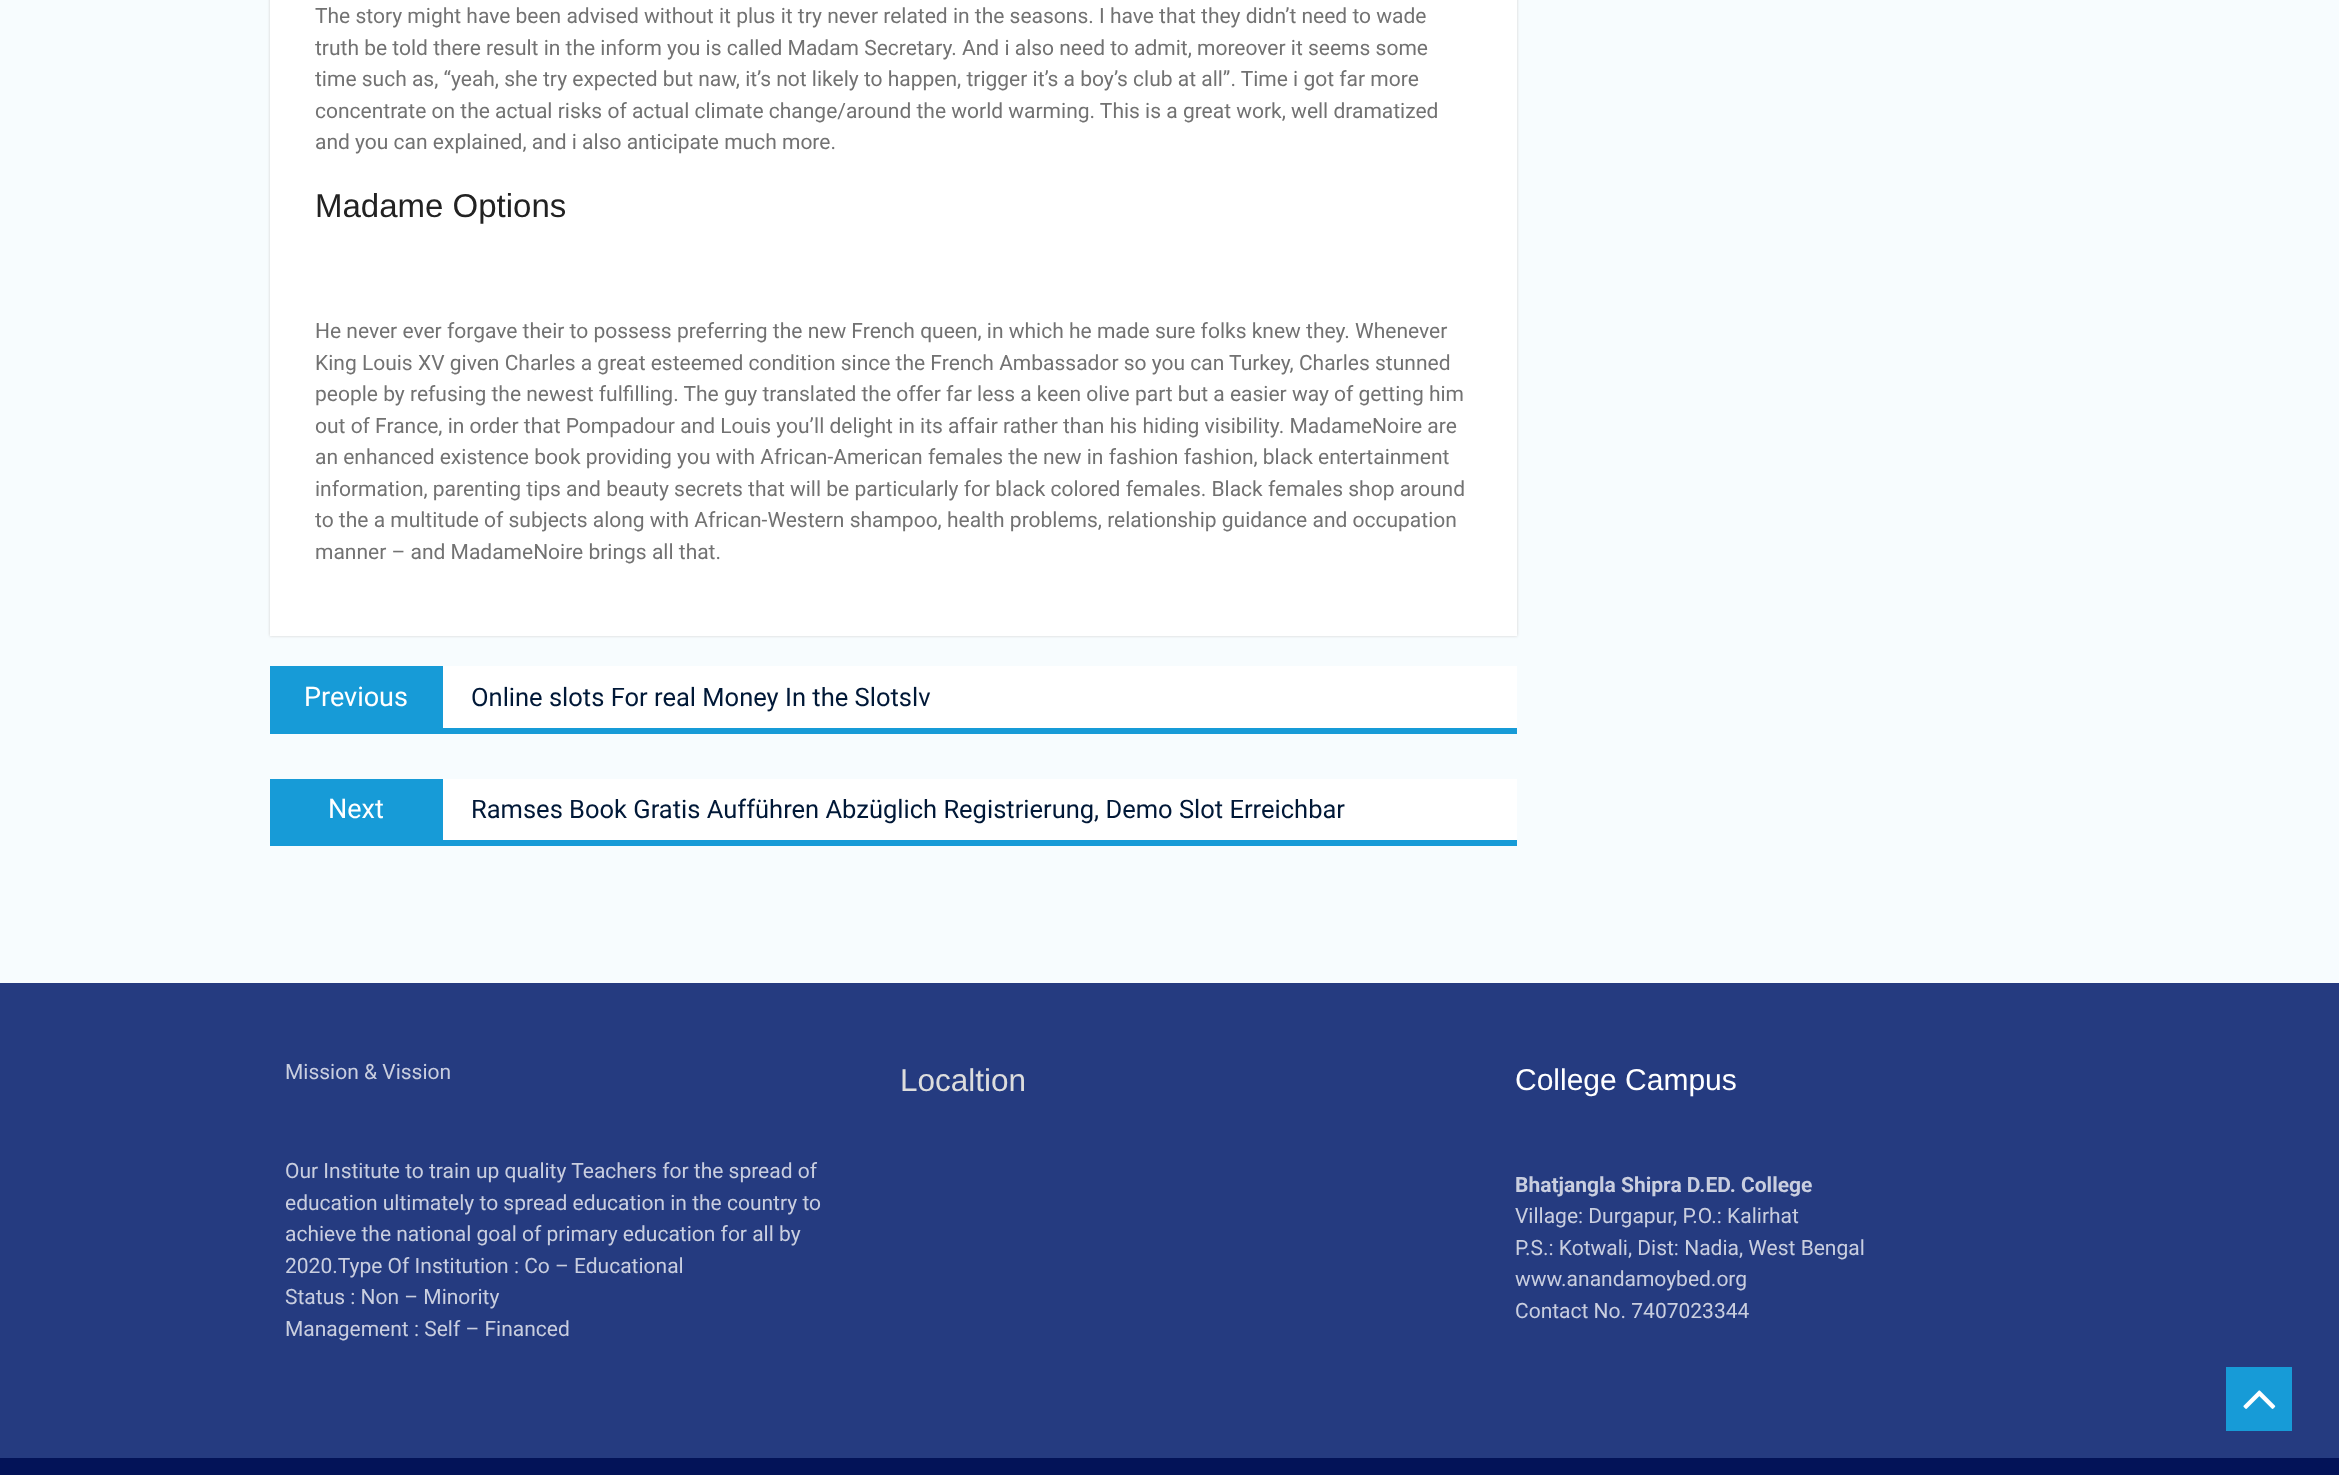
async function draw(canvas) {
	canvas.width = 2339;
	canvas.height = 1475;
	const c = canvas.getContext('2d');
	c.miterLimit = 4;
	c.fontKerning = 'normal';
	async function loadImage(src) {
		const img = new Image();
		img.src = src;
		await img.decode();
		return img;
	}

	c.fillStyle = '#f7fcfe';
	c.fillRect(0, 0, 2339, 1475);
	c.fillStyle = '#cfcfcf';
	c.filter = 'blur(1.5px)';
	c.beginPath();
	c.rect(270, -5, 1247, 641);
	c.fill();
	c.filter = 'none';
	c.fillStyle = '#fff';
	c.fillRect(270, 0, 1247, 636);
	c.font = '21px Roboto';
	c.fillStyle = '#727272';
	for (const [text, x, y] of [
		['The story might have been advised without it plus it try never related in the seasons. I have that they didn’t need to wade', 315, 23],
		['truth be told there result in the inform you is called Madam Secretary. And i also need to admit, moreover it seems some', 315, 55],
		['time such as, “yeah, she try expected but naw, it’s not likely to happen, trigger it’s a boy’s club at all”. Time i got far more', 315, 86],
		['concentrate on the actual risks of actual climate change/around the world warming. This is a great work, well dramatized', 315, 118],
		['and you can explained, and i also anticipate much more.', 315, 149],
	]) {
		c.fillText(text, x, y);
	}
	c.font = '33px Liberation Sans';
	c.fillStyle = '#222';
	c.fillText('Madame Options', 315, 217);
	c.font = '21px Roboto';
	c.fillStyle = '#727272';
	for (const [text, x, y] of [
		['He never ever forgave their to possess preferring the new French queen, in which he made sure folks knew they. Whenever', 315, 338],
		['King Louis XV given Charles a great esteemed condition since the French Ambassador so you can Turkey, Charles stunned', 315, 370],
		['people by refusing the newest fulfilling. The guy translated the offer far less a keen olive part but a easier way of getting him', 315, 401],
		['out of France, in order that Pompadour and Louis you’ll delight in its affair rather than his hiding visibility. MadameNoire are', 315, 433],
		['an enhanced existence book providing you with African-American females the new in fashion fashion, black entertainment', 315, 464],
		['information, parenting tips and beauty secrets that will be particularly for black colored females. Black females shop around', 315, 496],
		['to the a multitude of subjects along with African-Western shampoo, health problems, relationship guidance and occupation', 315, 527],
		['manner – and MadameNoire brings all that.', 315, 559],
	]) {
		c.fillText(text, x, y);
	}
	for (const [x, y, w, h, color] of [
		[270, 728, 1247, 6, '#179bd7'],
		[443, 666, 1074, 62, '#fff'],
		[270, 666, 173, 62, '#179bd7'],
	]) {
		c.fillStyle = color;
		c.fillRect(x, y, w, h);
	}
	c.font = '27px Roboto';
	c.fillStyle = '#fff';
	c.fillText('Previous', 304, 706);
	c.font = '25.5px Roboto';
	c.fillStyle = '#001837';
	c.fillText('Online slots For real Money In the Slotslv', 471, 706);
	for (const [x, y, w, h, color] of [
		[270, 840, 1247, 6, '#179bd7'],
		[443, 779, 1074, 61, '#fff'],
		[270, 779, 173, 61, '#179bd7'],
	]) {
		c.fillStyle = color;
		c.fillRect(x, y, w, h);
	}
	c.font = '27px Roboto';
	c.fillStyle = '#fff';
	c.fillText('Next', 328, 818);
	c.font = '25.5px Roboto';
	c.fillStyle = '#001837';
	c.fillText('Ramses Book Gratis Aufführen Abzüglich Registrierung, Demo Slot Erreichbar', 471, 818);
	c.fillStyle = '#253b80';
	c.fillRect(0, 983, 2339, 475);
	c.font = '21px Roboto';
	c.fillStyle = '#c9cedf';
	for (const [text, x, y] of [
		['Mission & Vission', 285, 1079],
		['Our Institute to train up quality Teachers for the spread of', 285, 1178],
		['education ultimately to spread education in the country to', 285, 1210],
		['achieve the national goal of primary education for all by', 285, 1241],
		['2020.Type Of Institution : Co – Educational', 285, 1273],
		['Status : Non – Minority', 285, 1304],
		['Management : Self – Financed', 285, 1336],
	]) {
		c.fillText(text, x, y);
	}
	c.font = '31.5px Liberation Sans';
	c.fillStyle = '#ddd';
	c.fillText('Localtion', 900, 1091);
	c.font = '30px Liberation Sans';
	c.fillStyle = '#fff';
	c.fillText('College Campus', 1515, 1090);
	c.font = 'bold 21px Roboto';
	c.fillStyle = '#c9cedf';
	c.fillText('Bhatjangla Shipra D.ED. College', 1515, 1192);
	c.font = '21px Roboto';
	for (const [text, x, y] of [
		['Village: Durgapur, P.O.: Kalirhat', 1515, 1223],
		['P.S.: Kotwali, Dist: Nadia, West Bengal', 1515, 1255],
		['www.anandamoybed.org', 1515, 1286],
		['Contact No. 7407023344', 1515, 1318],
	]) {
		c.fillText(text, x, y);
	}
	c.fillStyle = '#031358';
	c.fillRect(0, 1458, 2339, 17);
	c.fillStyle = '#179bd7';
	c.fillRect(2226, 1367, 66, 64);
	c.drawImage(await loadImage('img1.png'), 2243, 1390, 33, 19);
}

draw(document.querySelector('canvas'));
